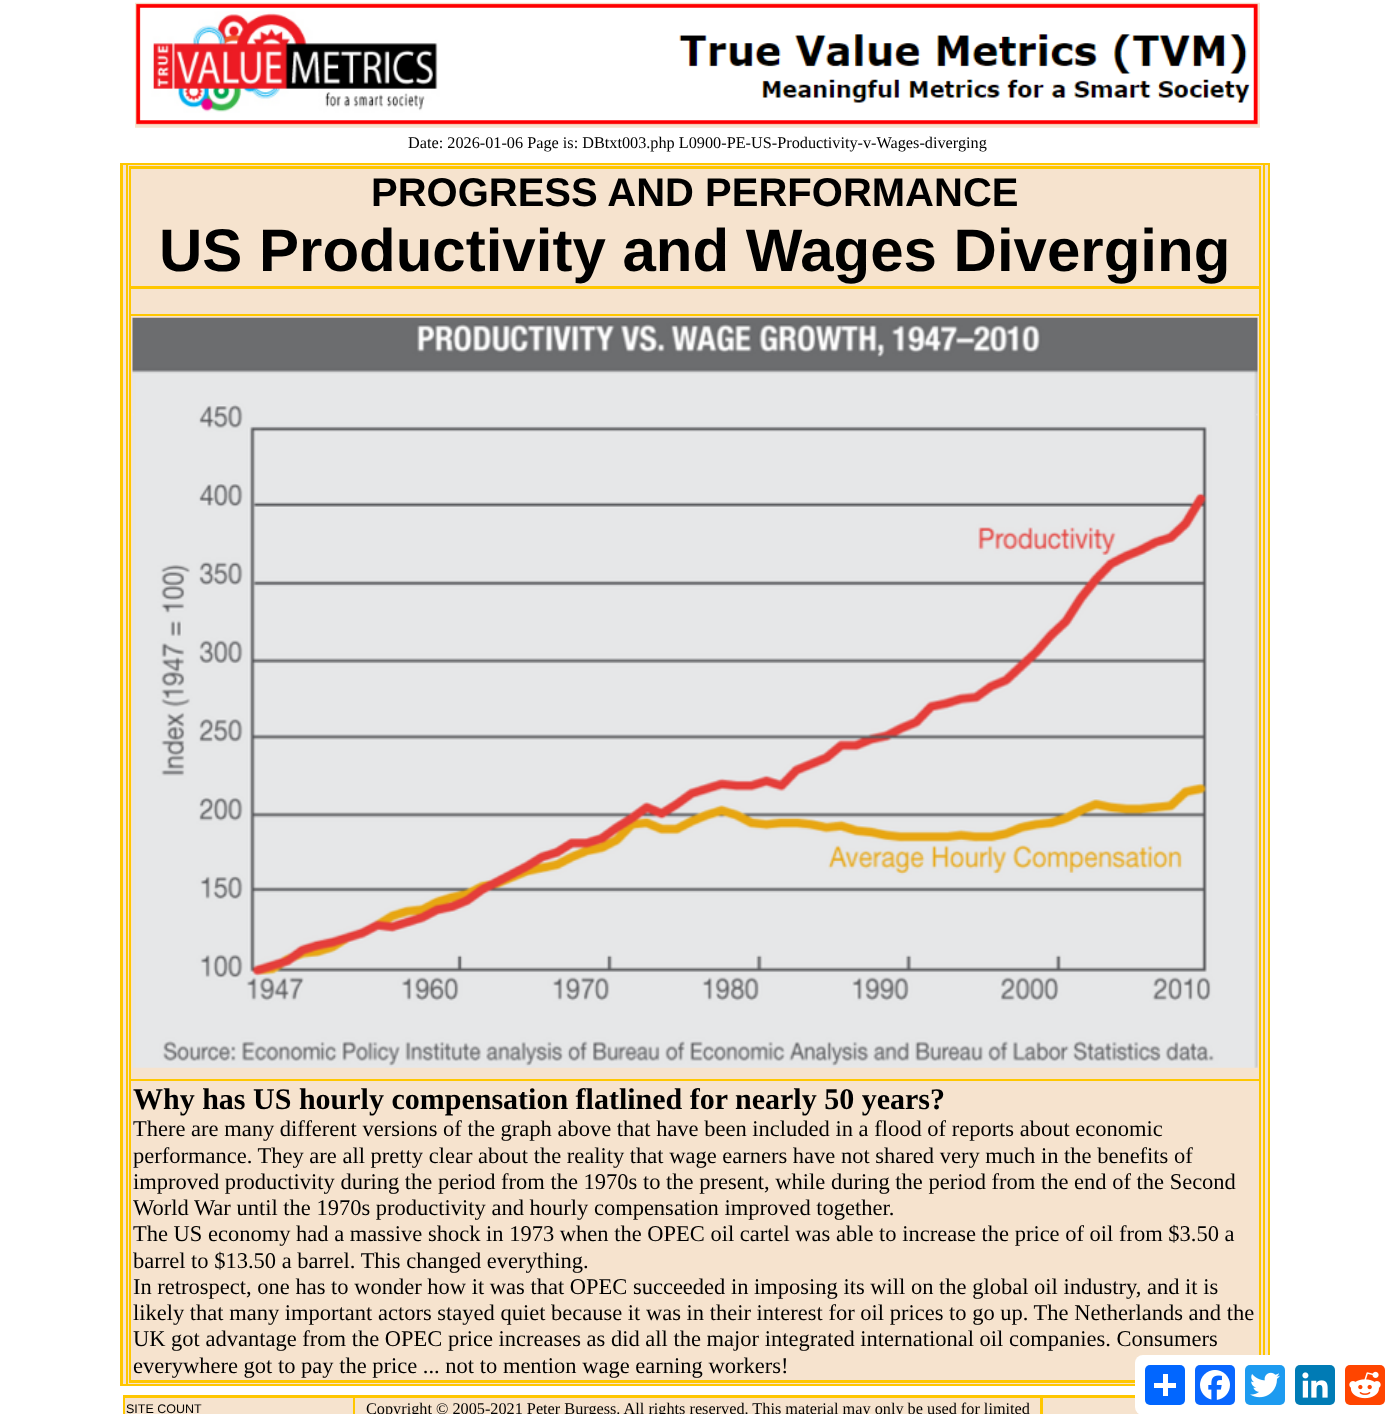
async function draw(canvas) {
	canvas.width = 1395;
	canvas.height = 1414;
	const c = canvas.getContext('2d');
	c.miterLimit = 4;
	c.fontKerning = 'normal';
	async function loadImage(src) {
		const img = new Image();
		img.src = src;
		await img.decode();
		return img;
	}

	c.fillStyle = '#fff';
	c.fillRect(0, 0, 1395, 1414);
	c.drawImage(await loadImage('img1.png'), 135, 2, 1125, 126);
	c.font = '16.25px Liberation Serif';
	c.fillStyle = '#000';
	c.fillText('Date: 2026-01-06 Page is: DBtxt003.php L0900-PE-US-Productivity-v-Wages-diverging', 408, 148);
	for (const [x, y, w, h, color] of [
		[120, 163, 1150, 1223, '#ffc700'],
		[123, 165, 3, 1219, '#f6e3ce'],
		[128, 165, 1135, 1219, '#f6e3ce'],
		[129, 166, 1132, 1217, '#ffc700'],
		[131, 169, 1128, 117, '#f6e3ce'],
	]) {
		c.fillStyle = color;
		c.fillRect(x, y, w, h);
	}
	c.font = 'bold 40px Liberation Sans';
	c.fillStyle = '#000';
	c.fillText('PROGRESS AND PERFORMANCE', 371, 206);
	c.font = 'bold 60px Liberation Sans';
	c.fillText('US Productivity and Wages Diverging', 159, 271);
	c.fillStyle = '#f6e3ce';
	c.fillRect(131, 289, 1128, 25);
	c.fillRect(131, 316, 1128, 763);
	c.drawImage(await loadImage('img2.png'), 132, 317, 1126, 751);
	c.fillRect(131, 1081, 1128, 299);
	c.font = 'bold 30px Liberation Serif';
	c.fillStyle = '#000';
	c.fillText('Why has US hourly compensation flatlined for nearly 50 years?', 133, 1109);
	c.font = '22.5px Liberation Serif';
	for (const [text, x, y] of [
		['There are many different versions of the graph above that have been included in a flood of reports about economic', 133, 1136],
		['performance. They are all pretty clear about the reality that wage earners have not shared very much in the benefits of', 133, 1163],
		['improved productivity during the period from the 1970s to the present, while during the period from the end of the Second', 133, 1189],
		['World War until the 1970s productivity and hourly compensation improved together.', 133, 1215],
		['The US economy had a massive shock in 1973 when the OPEC oil cartel was able to increase the price of oil from $3.50 a', 133, 1241],
		['barrel to $13.50 a barrel. This changed everything.', 133, 1268],
		['In retrospect, one has to wonder how it was that OPEC succeeded in imposing its will on the global oil industry, and it is', 133, 1294],
		['likely that many important actors stayed quiet because it was in their interest for oil prices to go up. The Netherlands and the', 133, 1320],
		['UK got advantage from the OPEC price increases as did all the major integrated international oil companies. Consumers', 133, 1346],
		['everywhere got to pay the price ... not to mention wage earning workers!', 133, 1373],
	]) {
		c.fillText(text, x, y);
	}
	for (const [x, y, w, h, color] of [
		[1265, 165, 3, 1190, '#f6e3ce'],
		[123, 1395, 1012, 19, '#ffc700'],
		[125, 1398, 228, 16, '#f6e3ce'],
	]) {
		c.fillStyle = color;
		c.fillRect(x, y, w, h);
	}
	c.font = '12.5px Liberation Sans';
	c.fillStyle = '#000';
	c.fillText('SITE COUNT', 126, 1413);
	c.fillStyle = '#f6e3ce';
	c.fillRect(355, 1398, 685, 16);
	c.font = '16.25px Liberation Serif';
	c.fillStyle = '#000';
	c.fillText('Copyright © 2005-2021 Peter Burgess. All rights reserved. This material may only be used for limited', 366, 1414);
	c.fillStyle = '#f6e3ce';
	c.fillRect(1043, 1398, 97, 16);
	c.fillStyle = '#fff';
	c.beginPath();
	c.roundRect(1135, 1355, 260, 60, 8);
	c.fill();
	c.fillStyle = '#0166ff';
	c.beginPath();
	c.roundRect(1145, 1365, 40, 40, 5);
	c.fill();
	c.fillStyle = '#fff';
	c.fillRect(1163, 1374, 5, 22);
	c.fillRect(1154, 1383, 22, 5);
	c.fillStyle = '#0866ff';
	c.beginPath();
	c.roundRect(1195, 1365, 40, 40, 5);
	c.fill();
	c.drawImage(await loadImage('img3.png'), 1200, 1370, 30, 30);
	c.fillStyle = '#1d9bf0';
	c.beginPath();
	c.roundRect(1245, 1365, 40, 40, 5);
	c.fill();
	c.drawImage(await loadImage('img4.png'), 1250, 1372, 30, 26);
	c.fillStyle = '#007bb5';
	c.beginPath();
	c.roundRect(1295, 1365, 40, 40, 5);
	c.fill();
	c.drawImage(await loadImage('img5.png'), 1302, 1372, 26, 26);
	c.fillStyle = '#ff4500';
	c.beginPath();
	c.roundRect(1345, 1365, 40, 40, 5);
	c.fill();
	c.drawImage(await loadImage('img6.png'), 1349, 1371, 32, 28);
}

draw(document.querySelector('canvas'));
